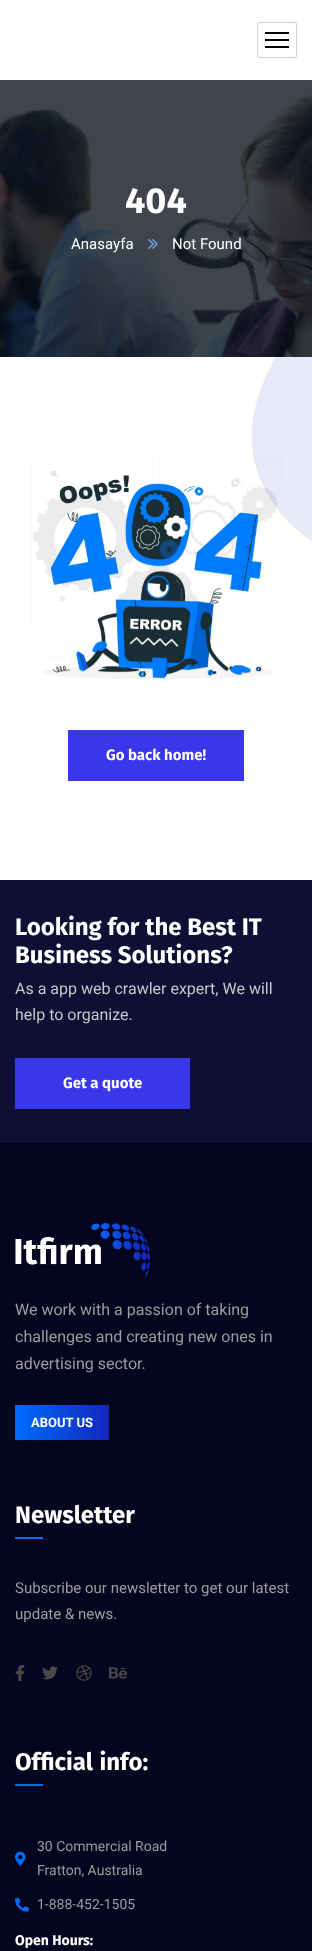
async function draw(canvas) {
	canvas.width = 312;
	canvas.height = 1951;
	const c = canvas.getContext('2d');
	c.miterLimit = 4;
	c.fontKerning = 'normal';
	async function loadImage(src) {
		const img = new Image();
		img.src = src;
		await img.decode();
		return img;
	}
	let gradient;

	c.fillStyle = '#fff';
	c.fillRect(0, 0, 312, 1951);
	c.beginPath();
	c.roundRect(257.5, 22.5, 39, 35, 1.5);
	c.strokeStyle = '#d1d1d1';
	c.stroke();
	for (const [x, y, w, h, color] of [
		[265, 32, 24, 2, '#000'],
		[265, 39, 24, 2, '#000'],
		[265, 46, 24, 2, '#000'],
	]) {
		c.fillStyle = color;
		c.fillRect(x, y, w, h);
	}
	c.drawImage(await loadImage('img1.png'), 0, 80, 312, 277);
	c.font = 'bold 36px Fira Sans';
	c.fillStyle = '#fff';
	c.fillText('404', 125, 213);
	c.font = '15px Roboto';
	c.fillText('Anasayfa', 71, 249);
	c.drawImage(await loadImage('img2.png'), 148, 239, 10, 10);
	c.fillText('Not Found', 172, 249);
	c.drawImage(await loadImage('img4.png'), 31, 457, 251, 222);
	c.drawImage(await loadImage('img3.png'), 252, 357, 60, 184);
	c.fillStyle = '#3a37eb';
	c.fillRect(68, 730, 176, 51);
	c.font = 'bold 15px Fira Sans';
	c.fillStyle = '#fff';
	c.fillText('Go back home!', 106, 760);
	c.fillStyle = '#0f0f35';
	c.fillRect(0, 880, 312, 263);
	c.font = 'bold 24px Fira Sans';
	c.fillStyle = '#fff';
	c.fillText('Looking for the Best IT', 15, 935);
	c.fillText('Business Solutions?', 15, 963);
	c.font = '16px Roboto';
	c.fillStyle = '#c9c8c8';
	c.fillText('As a app web crawler expert, We will', 15, 994);
	c.fillText('help to organize.', 15, 1020);
	c.fillStyle = '#3a37eb';
	c.fillRect(15, 1058, 175, 51);
	c.font = 'bold 15px Fira Sans';
	c.fillStyle = '#fff';
	c.fillText('Get a quote', 63, 1088);
	c.fillStyle = '#05051f';
	c.fillRect(0, 1143, 312, 808);
	c.drawImage(await loadImage('img5.png'), 15, 1223, 135, 54);
	c.font = '16px Roboto';
	c.fillStyle = '#9d9d9d';
	for (const [text, x, y] of [
		['We work with a passion of taking', 15, 1315],
		['challenges and creating new ones in', 15, 1342],
		['advertising sector.', 15, 1369],
	]) {
		c.fillText(text, x, y);
	}
	gradient = c.createLinearGradient(15, 1423, 203, 1423);
	gradient.addColorStop(0, '#006cff');
	gradient.addColorStop(0.5, '#1227b8');
	gradient.addColorStop(1, '#006cff');
	c.fillStyle = gradient;
	c.fillRect(15, 1405, 94, 35);
	c.font = 'bold 13px Roboto';
	c.fillStyle = '#fff';
	c.fillText('ABOUT US', 31, 1427);
	c.font = 'bold 24px Fira Sans';
	c.fillText('Newsletter', 15, 1523);
	c.fillStyle = '#006cff';
	c.fillRect(15, 1537, 28, 2);
	c.font = '15px Roboto';
	c.fillStyle = '#9d9d9d';
	c.fillText('Subscribe our newsletter to get our latest', 15, 1593);
	c.fillText('update & news.', 15, 1619);
	c.drawImage(await loadImage('img6.png'), 15, 1665, 10, 16);
	c.drawImage(await loadImage('img7.png'), 42, 1666, 16, 14);
	c.drawImage(await loadImage('img8.png'), 76, 1665, 16, 16);
	c.drawImage(await loadImage('img9.png'), 109, 1667, 18, 12);
	c.wordSpacing = '1px';
	c.font = 'bold 24px Fira Sans';
	c.fillStyle = '#fff';
	c.fillText('Official info:', 15, 1770);
	c.fillStyle = '#006cff';
	c.fillRect(15, 1784, 28, 2);
	c.drawImage(await loadImage('img10.png'), 15, 1851, 11, 15);
	c.wordSpacing = '0px';
	c.font = '14px Roboto';
	c.fillStyle = '#9d9d9d';
	c.fillText('30 Commercial Road', 37, 1851);
	c.fillText('Fratton, Australia', 37, 1875);
	c.drawImage(await loadImage('img11.png'), 15, 1897, 14, 15);
	c.fillText('1-888-452-1505', 37, 1909);
	c.font = 'bold 14px Fira Sans';
	c.fillStyle = '#fff';
	c.fillText('Open Hours:', 15, 1945);
}

draw(document.querySelector('canvas'));
